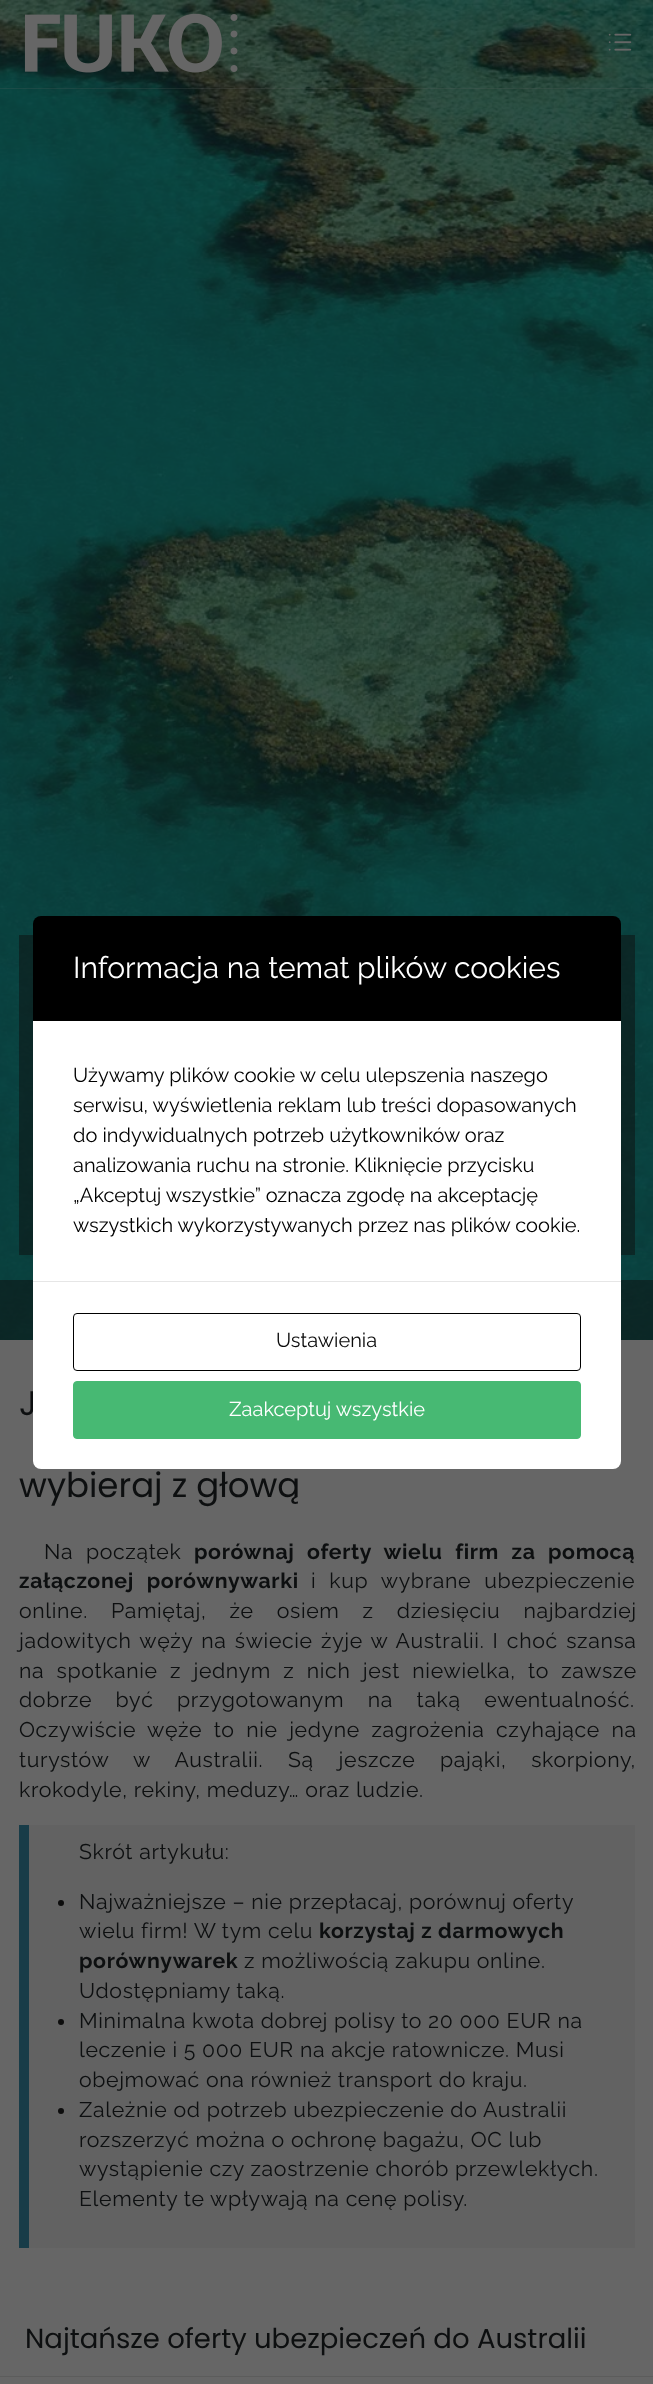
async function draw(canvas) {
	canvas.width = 653;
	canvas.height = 2384;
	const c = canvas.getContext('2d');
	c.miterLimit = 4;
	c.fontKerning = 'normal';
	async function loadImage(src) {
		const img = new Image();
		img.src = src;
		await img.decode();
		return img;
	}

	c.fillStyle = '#666';
	c.fillRect(0, 0, 653, 2384);
	c.drawImage(await loadImage('img3.png'), 0, 0, 653, 1340);
	c.fillStyle = '#0d0d0e80';
	c.fillRect(19, 935, 616, 320);
	c.fillStyle = '#000';
	c.beginPath();
	c.roundRect(33, 916, 588, 105, [8, 8, 0, 0]);
	c.fill();
	c.font = '30px Raleway';
	c.fillStyle = '#fff';
	c.fillText('Informacja na temat plików cookies', 73, 978);
	c.fillStyle = '#0d0d0e80';
	c.fillRect(0, 1280, 653, 60);
	c.fillStyle = '#fff';
	c.fillRect(33, 1021, 588, 260);
	c.font = '20px Raleway';
	c.fillStyle = '#000';
	for (const [text, x, y] of [
		['Używamy plików cookie w celu ulepszenia naszego', 73, 1082],
		['serwisu, wyświetlenia reklam lub treści dopasowanych', 73, 1112],
		['do indywidualnych potrzeb użytkowników oraz', 73, 1142],
		['analizowania ruchu na stronie. Kliknięcie przycisku', 73, 1172],
		['„Akceptuj wszystkie” oznacza zgodę na akceptację', 73, 1202],
		['wszystkich wykorzystywanych przez nas plików cookie.', 73, 1232],
	]) {
		c.fillText(text, x, y);
	}
	c.font = '34px Poppins';
	c.fillStyle = '#0d0f10';
	c.fillText('J', 19, 1415);
	c.fillStyle = '#fff';
	c.beginPath();
	c.roundRect(33, 1281, 588, 188, [0, 0, 8, 8]);
	c.fill();
	c.fillStyle = '#e6e6e6';
	c.fillRect(33, 1281, 588, 1);
	c.beginPath();
	c.roundRect(73.5, 1313.5, 507, 57, 3.5);
	c.strokeStyle = '#000';
	c.stroke();
	c.font = '20px Raleway';
	c.fillStyle = '#0a0a0a';
	c.fillText('Ustawienia', 276, 1347);
	c.fillStyle = '#47b973';
	c.beginPath();
	c.roundRect(73.5, 1381.5, 507, 57, 3.5);
	c.fill();
	c.strokeStyle = '#47b973';
	c.stroke();
	c.fillStyle = '#fff';
	c.fillText('Zaakceptuj wszystkie', 229, 1416);
	c.fillStyle = '#66666633';
	c.fillRect(0, 88, 653, 1);
	c.drawImage(await loadImage('img1.png'), 24, 13, 214, 60);
	c.drawImage(await loadImage('img2.png'), 608, 33, 24, 18);
	c.font = '34px Poppins';
	c.fillStyle = '#0d0f10';
	c.fillText('wybieraj z głową', 19, 1497);
	c.letterSpacing = '0.65px';
	c.wordSpacing = '6.75px';
	c.font = '21.25px Raleway';
	c.fillText('Na początek', 44, 1559);
	c.font = 'bold 21.25px Raleway';
	c.fillText('porównaj oferty wielu firm za pomocą', 194, 1559);
	c.wordSpacing = '7px';
	c.fillText('załączonej porównywarki', 19, 1588);
	c.font = '21.25px Raleway';
	c.fillText('i kup wybrane ubezpieczenie', 311, 1588);
	c.wordSpacing = '17px';
	c.fillText('online. Pamiętaj, że osiem z dziesięciu najbardziej', 19, 1618);
	c.wordSpacing = '2.25px';
	c.fillText('jadowitych węży na świecie żyje w Australii. I choć szansa', 19, 1648);
	c.wordSpacing = '6.25px';
	c.fillText('na spotkanie z jednym z nich jest niewielka, to zawsze', 19, 1678);
	c.wordSpacing = '17.5px';
	c.fillText('dobrze być przygotowanym na taką ewentualność.', 19, 1707);
	c.wordSpacing = '5.5px';
	c.fillText('Oczywiście węże to nie jedyne zagrożenia czyhające na', 19, 1737);
	c.wordSpacing = '18.75px';
	c.fillText('turystów w Australii. Są jeszcze pająki, skorpiony,', 19, 1767);
	c.wordSpacing = '0px';
	c.fillText('krokodyle, rekiny, meduzy… oraz ludzie.', 19, 1797);
	c.fillStyle = '#626262';
	c.fillRect(29, 1825, 606, 423);
	c.fillStyle = '#183c48';
	c.fillRect(19, 1825, 10, 423);
	c.fillStyle = '#0d0f10';
	c.fillText('Skrót artykułu:', 79, 1859);
	c.fillStyle = '#0d0d0d';
	c.beginPath();
	c.arc(61, 1903, 3, 0, 2 * Math.PI);
	c.fill();
	c.fillStyle = '#0d0f10';
	c.fillText('Najważniejsze – nie przepłacaj, porównuj oferty', 79, 1909);
	c.fillText('wielu firm! W tym celu', 79, 1938);
	c.font = 'bold 21.25px Raleway';
	c.fillText('korzystaj z darmowych', 319, 1938);
	c.fillText('porównywarek', 79, 1968);
	c.font = '21.25px Raleway';
	c.fillText('z możliwością zakupu online.', 244, 1968);
	c.fillText('Udostępniamy taką.', 79, 1998);
	c.fillStyle = '#0d0d0d';
	c.beginPath();
	c.arc(61, 2022, 3, 0, 2 * Math.PI);
	c.fill();
	c.fillStyle = '#0d0f10';
	for (const [text, x, y] of [
		['Minimalna kwota dobrej polisy to 20 000 EUR na', 79, 2028],
		['leczenie i 5 000 EUR na akcje ratownicze. Musi', 79, 2057],
		['obejmować ona również transport do kraju.', 79, 2087],
	]) {
		c.fillText(text, x, y);
	}
	c.fillStyle = '#0d0d0d';
	c.beginPath();
	c.arc(61, 2111, 3, 0, 2 * Math.PI);
	c.fill();
	c.fillStyle = '#0d0f10';
	for (const [text, x, y] of [
		['Zależnie od potrzeb ubezpieczenie do Australii', 79, 2117],
		['rozszerzyć można o ochronę bagażu, OC lub', 79, 2147],
		['wystąpienie czy zaostrzenie chorób przewlekłych.', 79, 2176],
		['Elementy te wpływają na cenę polisy.', 79, 2206],
	]) {
		c.fillText(text, x, y);
	}
	c.fillStyle = '#5c5c5c';
	c.fillRect(0, 2376, 653, 1);
	c.letterSpacing = '0px';
	c.font = '27.5px Poppins';
	c.fillStyle = '#0d0f10';
	c.fillText('Najtańsze oferty ubezpieczeń do Australii', 25, 2348);
}

draw(document.querySelector('canvas'));
